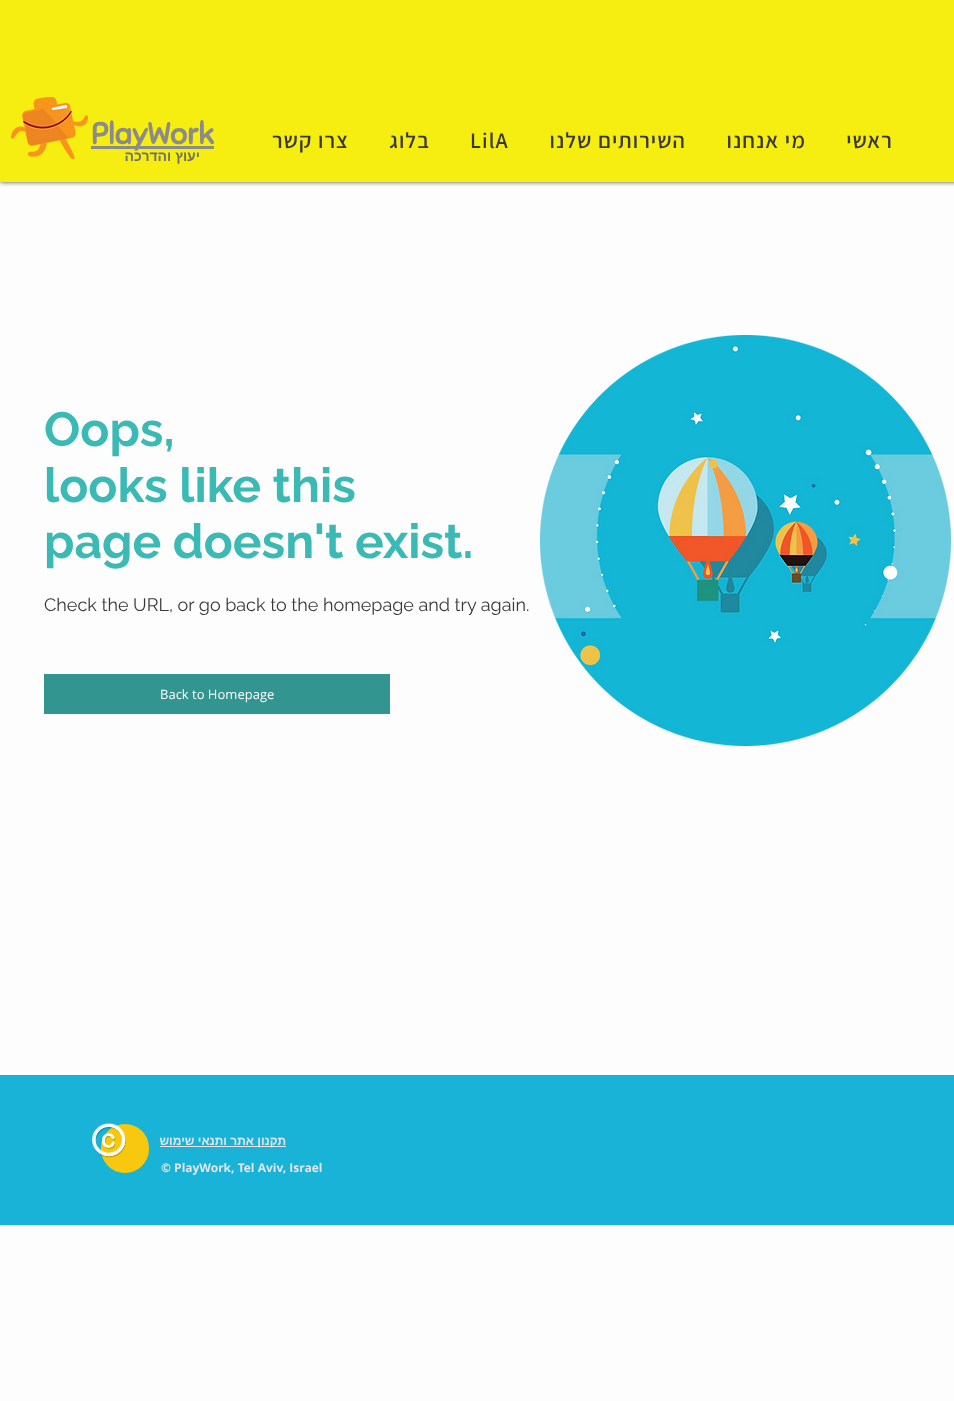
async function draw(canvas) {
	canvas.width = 954;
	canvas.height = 1401;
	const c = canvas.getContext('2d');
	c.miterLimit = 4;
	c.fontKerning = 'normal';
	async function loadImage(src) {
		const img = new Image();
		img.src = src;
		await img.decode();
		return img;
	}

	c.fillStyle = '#fefdfd';
	c.fillRect(0, 0, 954, 1401);
	c.fillStyle = '#000000b3';
	c.filter = 'blur(2.5px)';
	c.beginPath();
	c.rect(0, 0, 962, 182);
	c.fill();
	c.filter = 'none';
	c.fillStyle = '#f6ee11';
	c.fillRect(0, 0, 954, 182);
	c.drawImage(await loadImage('img1.png'), 11, 97, 77, 62);
	c.fillStyle = '#8c8b8b';
	c.fillRect(91, 146, 123, 3);
	c.font = 'bold 30px Sniglet';
	c.fillText('PlayWork', 91, 144);
	c.letterSpacing = '1.1px';
	c.direction = 'rtl';
	c.font = '600 22px Assistant';
	c.fillStyle = '#383838';
	c.fillText('צרו קשר', 349, 148);
	c.fillText('בלוג', 430, 148);
	c.direction = 'ltr';
	c.fillText('LilA', 470, 148);
	c.direction = 'rtl';
	for (const [text, x, y] of [
		['השירותים שלנו', 686, 148],
		['מי אנחנו', 806, 148],
		['ראשי', 893, 148],
	]) {
		c.fillText(text, x, y);
	}
	c.letterSpacing = '0px';
	c.font = 'bold 14px Liberation Sans';
	c.fillStyle = '#706e6e';
	c.fillText('יעוץ והדרכה', 200, 161);
	c.direction = 'ltr';
	c.font = 'bold 48px Raleway';
	c.fillStyle = '#3bbab5';
	for (const [text, x, y] of [
		['Oops,', 44, 446],
		['looks like this', 44, 502],
		['page doesn\'t exist.', 44, 558],
	]) {
		c.fillText(text, x, y);
	}
	c.drawImage(await loadImage('img2.png'), 540, 335, 411, 411);
	c.font = '18px Raleway';
	c.fillStyle = '#383838';
	c.fillText('Check the URL, or go back to the homepage and try again.', 44, 611);
	c.fillStyle = '#33958f';
	c.fillRect(44, 674, 346, 40);
	c.font = '13px Open Sans';
	c.fillStyle = '#fefdfd';
	c.fillText('Back to Homepage', 160, 699);
	c.fillStyle = '#18b3d7';
	c.fillRect(0, 1075, 954, 150);
	c.fillStyle = '#f7c80e';
	c.beginPath();
	c.roundRect(101, 1124, 48, 49, 24);
	c.fill();
	c.drawImage(await loadImage('img3.png'), 92, 1123, 34, 35);
	c.fillStyle = '#e5e5e5';
	c.fillRect(160, 1146, 126, 1);
	c.direction = 'rtl';
	c.font = 'bold 12px Liberation Sans';
	c.fillText('תקנון אתר ותנאי שימוש', 286, 1145);
	c.direction = 'ltr';
	c.font = 'bold 12px Open Sans';
	c.fillText('© PlayWork, Tel Aviv, Israel', 161, 1172);
}

draw(document.querySelector('canvas'));
